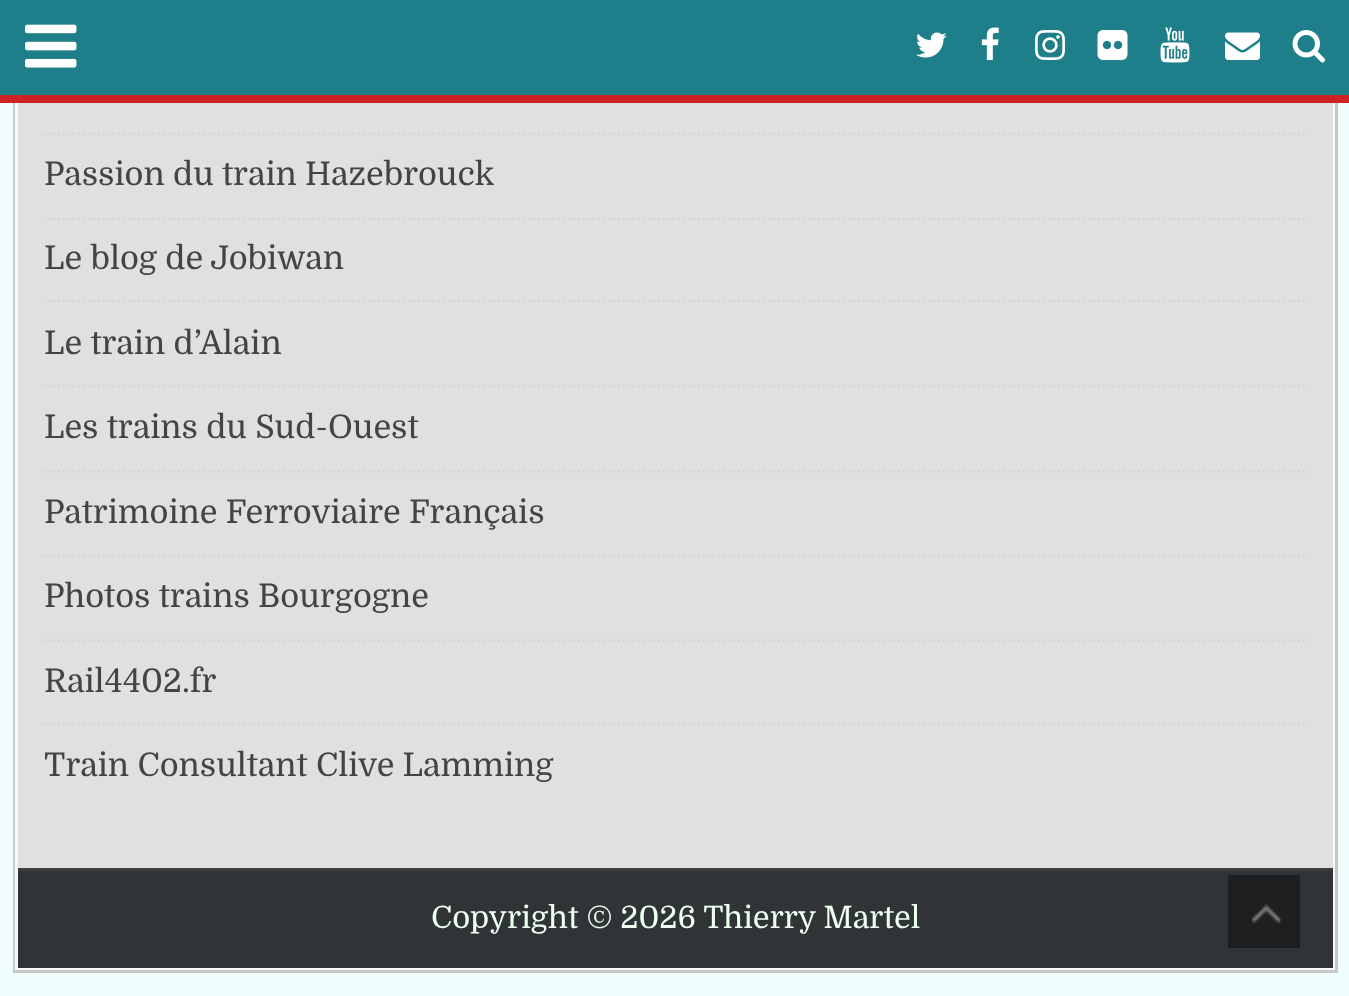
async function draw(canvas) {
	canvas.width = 1349;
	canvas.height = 996;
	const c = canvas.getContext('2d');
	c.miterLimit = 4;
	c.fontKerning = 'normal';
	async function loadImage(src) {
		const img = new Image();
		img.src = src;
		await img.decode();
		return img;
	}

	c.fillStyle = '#effdfe';
	c.fillRect(0, 0, 1349, 996);
	c.strokeStyle = '#c8c8c8';
	c.lineWidth = 3;
	c.strokeRect(14.5, -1.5, 1322, 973);
	c.strokeStyle = '#f9f9f9';
	c.strokeRect(16.5, -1.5, 1317, 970);
	c.fillStyle = '#1e7e89';
	c.fillRect(0, 0, 1349, 95);
	c.fillStyle = '#cd2122';
	c.fillRect(0, 95, 1349, 8);
	c.drawImage(await loadImage('img1.png'), 25, 24, 52, 44);
	c.drawImage(await loadImage('img2.png'), 916, 32, 31, 26);
	c.drawImage(await loadImage('img3.png'), 981, 27, 18, 33);
	c.drawImage(await loadImage('img4.png'), 1035, 30, 30, 30);
	c.drawImage(await loadImage('img5.png'), 1097, 30, 31, 30);
	c.drawImage(await loadImage('img6.png'), 1160, 27, 30, 36);
	c.drawImage(await loadImage('img7.png'), 1225, 32, 35, 28);
	c.drawImage(await loadImage('img8.png'), 1292, 30, 33, 33);
	c.fillStyle = '#e0e0e0';
	c.fillRect(18, 103, 1315, 765);
	c.save();
	c.beginPath();
	c.rect(43, 0, 1265, 793);
	c.clip();
	c.beginPath();
	c.moveTo(42.5, 134);
	c.lineTo(1307.5, 134);
	c.strokeStyle = '#d6d6d6';
	c.lineWidth = 2.5;
	c.setLineDash([2.5, 2.5]);
	c.stroke();
	c.beginPath();
	c.moveTo(42.5, 219);
	c.lineTo(1307.5, 219);
	c.stroke();
	c.restore();
	c.font = '32.5px Domine';
	c.fillStyle = '#444';
	c.fillText('Passion du train Hazebrouck', 44, 185);
	c.save();
	c.beginPath();
	c.rect(43, 0, 1265, 793);
	c.clip();
	c.beginPath();
	c.moveTo(42.5, 301);
	c.lineTo(1307.5, 301);
	c.strokeStyle = '#d6d6d6';
	c.lineWidth = 2.5;
	c.setLineDash([2.5, 2.5]);
	c.stroke();
	c.restore();
	c.fillText('Le blog de Jobiwan', 44, 269);
	c.save();
	c.beginPath();
	c.rect(43, 0, 1265, 793);
	c.clip();
	c.beginPath();
	c.moveTo(42.5, 386);
	c.lineTo(1307.5, 386);
	c.strokeStyle = '#d6d6d6';
	c.lineWidth = 2.5;
	c.setLineDash([2.5, 2.5]);
	c.stroke();
	c.restore();
	c.fillText('Le train d’Alain', 44, 354);
	c.save();
	c.beginPath();
	c.rect(43, 0, 1265, 793);
	c.clip();
	c.beginPath();
	c.moveTo(42.5, 471);
	c.lineTo(1307.5, 471);
	c.strokeStyle = '#d6d6d6';
	c.lineWidth = 2.5;
	c.setLineDash([2.5, 2.5]);
	c.stroke();
	c.restore();
	c.fillText('Les trains du Sud-Ouest', 44, 438);
	c.save();
	c.beginPath();
	c.rect(43, 0, 1265, 793);
	c.clip();
	c.beginPath();
	c.moveTo(42.5, 556);
	c.lineTo(1307.5, 556);
	c.strokeStyle = '#d6d6d6';
	c.lineWidth = 2.5;
	c.setLineDash([2.5, 2.5]);
	c.stroke();
	c.restore();
	c.fillText('Patrimoine Ferroviaire Français', 44, 523);
	c.save();
	c.beginPath();
	c.rect(43, 0, 1265, 793);
	c.clip();
	c.beginPath();
	c.moveTo(42.5, 641);
	c.lineTo(1307.5, 641);
	c.strokeStyle = '#d6d6d6';
	c.lineWidth = 2.5;
	c.setLineDash([2.5, 2.5]);
	c.stroke();
	c.restore();
	c.fillText('Photos trains Bourgogne', 44, 607);
	c.save();
	c.beginPath();
	c.rect(43, 0, 1265, 793);
	c.clip();
	c.beginPath();
	c.moveTo(42.5, 724);
	c.lineTo(1307.5, 724);
	c.strokeStyle = '#d6d6d6';
	c.lineWidth = 2.5;
	c.setLineDash([2.5, 2.5]);
	c.stroke();
	c.restore();
	c.fillText('Rail4402.fr', 44, 692);
	c.fillText('Train Consultant Clive Lamming', 44, 776);
	c.fillStyle = '#303436';
	c.fillRect(18, 871, 1315, 97);
	c.fillStyle = '#3d3d3d';
	c.fillRect(18, 868, 1315, 3);
	c.font = '30.9px Domine';
	c.fillStyle = '#ecfff1';
	c.fillText('Copyright © 2026 Thierry Martel', 431, 928);
	c.fillStyle = '#1d1f20';
	c.fillRect(1228, 875, 72, 73);
	c.drawImage(await loadImage('img9.png'), 1251, 904, 31, 20);
}

draw(document.querySelector('canvas'));
